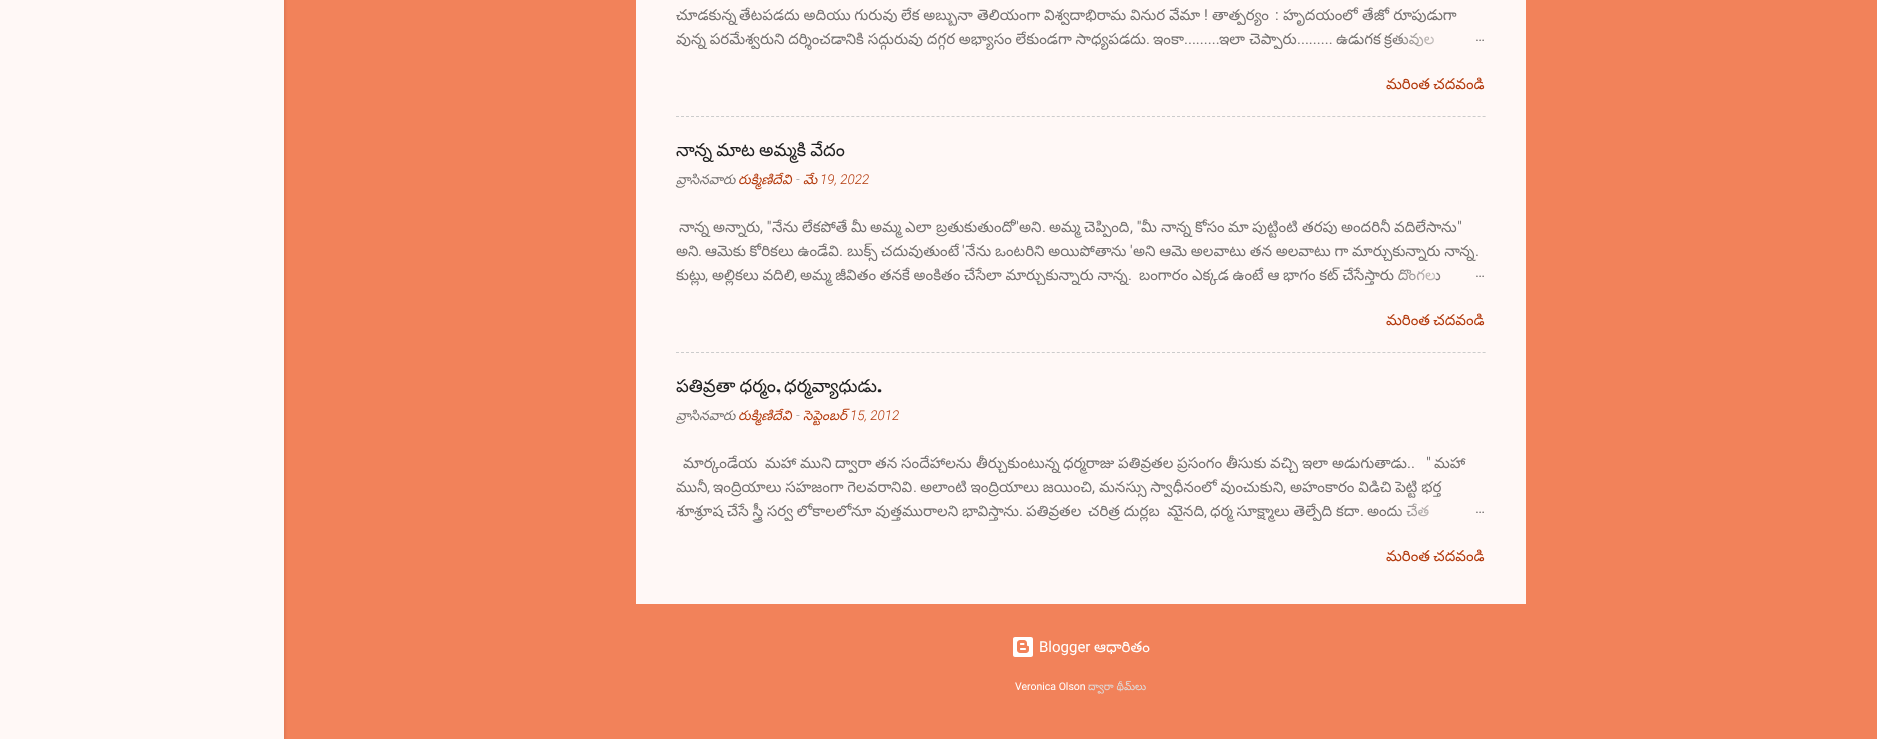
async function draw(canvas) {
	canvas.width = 1877;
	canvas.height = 739;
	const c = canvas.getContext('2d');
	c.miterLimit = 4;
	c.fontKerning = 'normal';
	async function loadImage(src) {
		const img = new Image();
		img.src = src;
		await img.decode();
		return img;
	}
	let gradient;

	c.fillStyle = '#f2825a';
	c.fillRect(0, 0, 1877, 739);
	c.fillStyle = '#0000001a';
	c.filter = 'blur(1.5px)';
	c.beginPath();
	c.rect(1, -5, 284, 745);
	c.fill();
	c.filter = 'none';
	c.fillStyle = '#fff8f6';
	c.fillRect(0, 0, 284, 739);
	c.fillRect(636, 0, 890, 604);
	c.save();
	c.beginPath();
	c.rect(676, 0, 810, 51);
	c.clip();
	c.font = '15px Noto Sans Telugu';
	c.fillStyle = '#757271';
	c.fillText('చూడకున్న', 676, 20);
	c.restore();
	c.wordSpacing = '-0.5px';
	c.font = '15px Noto Sans Telugu';
	c.fillStyle = '#757271';
	c.fillText('తేటపడదు అదియు గురువు లేక అబ్బునా', 739, 20);
	c.fillText('తెలియంగా విశ్వదాభిరామ వినుర వేమా', 977, 20);
	c.wordSpacing = '0px';
	c.font = '15px Roboto';
	c.fillText('!', 1204, 20);
	c.font = '15px Noto Sans Telugu';
	c.fillText('తాత్పర్యం', 1212, 20);
	c.font = '15px Roboto';
	c.fillText(':', 1275, 20);
	c.font = '15px Noto Sans Telugu';
	c.fillText('హృదయంలో తేజో రూపుడుగా', 1283, 20);
	c.wordSpacing = '-0.5px';
	c.fillText('వున్న పరమేశ్వరుని దర్శించడానికి సద్గురువు దగ్గర అభ్యాసం లేకుండగా సాధ్యపడదు', 676, 44);
	c.wordSpacing = '0px';
	c.font = '15px Roboto';
	c.fillText('.', 1146, 44);
	c.font = '15px Noto Sans Telugu';
	c.fillText('ఇంకా', 1153, 44);
	c.font = '15px Roboto';
	c.fillText('.........', 1184, 44);
	c.font = '15px Noto Sans Telugu';
	c.fillText('ఇలా చెప్పారు', 1219, 44);
	c.font = '15px Roboto';
	c.fillText('.........', 1297, 44);
	c.wordSpacing = '-1px';
	c.font = '15px Noto Sans Telugu';
	c.fillText('ఉడుగక క్రతువుల', 1336, 44);
	gradient = c.createLinearGradient(1486, 39, 1390, 39);
	gradient.addColorStop(0, '#fff8f6');
	gradient.addColorStop(0.2, '#fff8f6');
	gradient.addColorStop(1, '#fff8f600');
	c.fillStyle = gradient;
	c.fillRect(1392, 33, 43, 14);
	c.wordSpacing = '0px';
	c.font = '15px Roboto';
	c.fillStyle = '#757271';
	c.fillText('…', 1475, 41);
	c.wordSpacing = '-1px';
	c.font = '15px Noto Sans Telugu';
	c.fillStyle = '#b33a0d';
	c.fillText('మరింత చదవండి', 1386, 89);
	c.beginPath();
	c.moveTo(676, 116.5);
	c.lineTo(1486, 116.5);
	c.strokeStyle = '#ccc';
	c.setLineDash([3, 2.01]);
	c.stroke();
	c.font = '18px Noto Sans Telugu';
	c.fillStyle = '#212121';
	c.fillText('నాన్న మాట అమ్మకి వేదం', 676, 156);
	c.wordSpacing = '0px';
	c.font = 'italic 13.5px Noto Sans Telugu';
	c.fillStyle = '#757271';
	c.fillText('వ్రాసినవారు', 676, 184);
	c.fillStyle = '#b33a0d';
	c.fillText('రుక్మిణిదేవి', 738, 184);
	c.font = 'italic 300 13.5px Roboto';
	c.fillStyle = '#757271';
	c.fillText('-', 796, 184);
	c.font = 'italic 13.5px Noto Sans Telugu';
	c.fillStyle = '#b33a0d';
	c.fillText('మే', 803, 184);
	c.font = 'italic 300 13.5px Roboto';
	c.fillText('19, 2022', 820, 184);
	c.font = '15px Noto Sans Telugu';
	c.fillStyle = '#757271';
	c.fillText('నాన్న', 679, 232);
	c.fillText('అన్నారు', 713, 232);
	c.font = '15px Roboto';
	c.fillText(', "', 760, 232);
	c.font = '15px Noto Sans Telugu';
	for (const [text, x, y] of [
		['నేను', 772, 232],
		['లేకపోతే', 802, 232],
		['మీ', 851, 232],
		['అమ్మ', 870, 232],
		['ఎలా', 905, 232],
		['బ్రతుకుతుందో', 936, 232],
	]) {
		c.fillText(text, x, y);
	}
	c.font = '15px Roboto';
	c.fillText('"', 1014, 232);
	c.font = '15px Noto Sans Telugu';
	c.fillText('అని', 1019, 232);
	c.font = '15px Roboto';
	c.fillText('.', 1042, 232);
	c.font = '15px Noto Sans Telugu';
	c.fillText('అమ్మ', 1049, 232);
	c.fillText('చెప్పింది', 1084, 232);
	c.font = '15px Roboto';
	c.fillText(', "', 1130, 232);
	c.font = '15px Noto Sans Telugu';
	for (const [text, x, y] of [
		['మీ', 1141, 232],
		['నాన్న', 1161, 232],
		['కోసం', 1195, 232],
		['మా', 1228, 232],
		['పుట్టింటి', 1252, 232],
		['తరపు', 1302, 232],
		['అందరినీ', 1341, 232],
		['వదిలేసాను', 1394, 232],
	]) {
		c.fillText(text, x, y);
	}
	c.font = '15px Roboto';
	c.fillText('"', 1457, 232);
	c.font = '15px Noto Sans Telugu';
	c.fillText('అని', 676, 256);
	c.font = '15px Roboto';
	c.fillText('.', 698, 256);
	c.wordSpacing = '-0.5px';
	c.font = '15px Noto Sans Telugu';
	c.fillText('ఆమెకు కోరికలు ఉండేవి', 705, 256);
	c.wordSpacing = '0px';
	c.font = '15px Roboto';
	c.fillText('.', 839, 256);
	c.wordSpacing = '-0.5px';
	c.font = '15px Noto Sans Telugu';
	c.fillText('బుక్స్ చదువుతుంటే', 847, 256);
	c.wordSpacing = '0px';
	c.font = '15px Roboto';
	c.fillText('\'', 962, 256);
	c.wordSpacing = '-0.5px';
	c.font = '15px Noto Sans Telugu';
	c.fillText('నేను ఒంటరిని అయిపోతాను', 965, 256);
	c.wordSpacing = '0px';
	c.font = '15px Roboto';
	c.fillText('\'', 1130, 256);
	c.wordSpacing = '-0.5px';
	c.font = '15px Noto Sans Telugu';
	c.fillText('అని ఆమె అలవాటు తన అలవాటు గా మార్చుకున్నారు నాన్న', 1133, 256);
	c.wordSpacing = '0px';
	c.font = '15px Roboto';
	c.fillText('.', 1475, 256);
	c.save();
	c.beginPath();
	c.rect(676, 215, 810, 72);
	c.clip();
	c.font = '15px Noto Sans Telugu';
	c.fillText('కుట్లు', 676, 280);
	c.restore();
	c.fillText(',', 705, 280);
	c.wordSpacing = '-0.5px';
	c.font = '15px Noto Sans Telugu';
	c.fillText('అల్లికలు వదిలి', 712, 280);
	c.wordSpacing = '0px';
	c.font = '15px Roboto';
	c.fillText(',', 794, 280);
	c.wordSpacing = '-0.5px';
	c.font = '15px Noto Sans Telugu';
	c.fillText('అమ్మ జీవితం తనకే అంకితం చేసేలా మార్చుకున్నారు నాన్న', 800, 280);
	c.wordSpacing = '0px';
	c.font = '15px Roboto';
	c.fillText('.', 1128, 280);
	c.wordSpacing = '-0.5px';
	c.font = '15px Noto Sans Telugu';
	c.fillText('బంగారం ఎక్కడ ఉంటే ఆ భాగం కట్ చేసేస్తారు దొంగలు', 1139, 280);
	gradient = c.createLinearGradient(1486, 275, 1390, 275);
	gradient.addColorStop(0, '#fff8f6');
	gradient.addColorStop(0.2, '#fff8f6');
	gradient.addColorStop(1, '#fff8f600');
	c.fillStyle = gradient;
	c.fillRect(1398, 269, 38, 12);
	c.wordSpacing = '0px';
	c.font = '15px Roboto';
	c.fillStyle = '#757271';
	c.fillText('…', 1475, 277);
	c.wordSpacing = '-1px';
	c.font = '15px Noto Sans Telugu';
	c.fillStyle = '#b33a0d';
	c.fillText('మరింత చదవండి', 1386, 325);
	c.beginPath();
	c.moveTo(676, 352.5);
	c.lineTo(1486, 352.5);
	c.stroke();
	c.font = '18px Noto Sans Telugu';
	c.fillStyle = '#212121';
	c.fillText('పతివ్రతా ధర్మం', 676, 392);
	c.wordSpacing = '0px';
	c.font = '900 18px Playfair Display';
	c.fillText(',', 776, 392);
	c.font = '18px Noto Sans Telugu';
	c.fillText('ధర్మవ్యాధుడు', 784, 392);
	c.font = '900 18px Playfair Display';
	c.fillText('.', 877, 392);
	c.font = 'italic 13.5px Noto Sans Telugu';
	c.fillStyle = '#757271';
	c.fillText('వ్రాసినవారు', 676, 420);
	c.fillStyle = '#b33a0d';
	c.fillText('రుక్మిణిదేవి', 738, 420);
	c.font = 'italic 300 13.5px Roboto';
	c.fillStyle = '#757271';
	c.fillText('-', 796, 420);
	c.font = 'italic 13.5px Noto Sans Telugu';
	c.fillStyle = '#b33a0d';
	c.fillText('సెప్టెంబర్', 803, 420);
	c.font = 'italic 300 13.5px Roboto';
	c.fillText('15, 2012', 850, 420);
	c.font = '15px Noto Sans Telugu';
	c.fillStyle = '#757271';
	for (const [text, x, y] of [
		['మార్కండేయ', 683, 468],
		['మహా', 765, 468],
		['ముని', 800, 468],
		['ద్వారా', 835, 468],
		['తన', 875, 468],
		['సందేహాలను', 901, 468],
		['తీర్చుకుంటున్న', 976, 468],
		['ధర్మరాజు', 1063, 468],
		['పతివ్రతల', 1118, 468],
		['ప్రసంగం', 1177, 468],
		['తీసుకు', 1226, 468],
		['వచ్చి', 1270, 468],
		['ఇలా', 1302, 468],
		['అడుగుతాడు', 1332, 468],
	]) {
		c.fillText(text, x, y);
	}
	c.font = '15px Roboto';
	c.fillText('..   "', 1407, 468);
	c.font = '15px Noto Sans Telugu';
	c.fillText('మహా', 1434, 468);
	c.save();
	c.beginPath();
	c.rect(676, 451, 810, 72);
	c.clip();
	c.fillText('మునీ', 676, 492);
	c.restore();
	c.font = '15px Roboto';
	c.fillText(',', 707, 492);
	c.wordSpacing = '-0.5px';
	c.font = '15px Noto Sans Telugu';
	c.fillText('ఇంద్రియాలు సహజంగా గెలవరానివి', 713, 492);
	c.wordSpacing = '0px';
	c.font = '15px Roboto';
	c.fillText('.', 913, 492);
	c.wordSpacing = '-0.5px';
	c.font = '15px Noto Sans Telugu';
	c.fillText('అలాంటి ఇంద్రియాలు జయించి', 920, 492);
	c.wordSpacing = '0px';
	c.font = '15px Roboto';
	c.fillText(',', 1092, 492);
	c.wordSpacing = '-0.5px';
	c.font = '15px Noto Sans Telugu';
	c.fillText('మనస్సు స్వాధీనంలో వుంచుకుని', 1099, 492);
	c.wordSpacing = '0px';
	c.font = '15px Roboto';
	c.fillText(',', 1283, 492);
	c.wordSpacing = '-0.5px';
	c.font = '15px Noto Sans Telugu';
	c.fillText('అహంకారం విడిచి పెట్టి భర్త', 1290, 492);
	c.save();
	c.beginPath();
	c.rect(676, 451, 810, 72);
	c.clip();
	c.fillText('శూశ్రూష చేసే స్త్రీ సర్వ లోకాలలోనూ వుత్తమురాలని భావిస్తాను', 676, 516);
	c.restore();
	c.wordSpacing = '0px';
	c.font = '15px Roboto';
	c.fillText('.', 1019, 516);
	c.font = '15px Noto Sans Telugu';
	c.fillText('పతివ్రతల', 1026, 516);
	c.wordSpacing = '-0.5px';
	c.fillText('చరిత్ర దుర్లబ', 1088, 516);
	c.wordSpacing = '0px';
	c.fillText('మైనది', 1167, 516);
	c.font = '15px Roboto';
	c.fillText(',', 1204, 516);
	c.wordSpacing = '-0.5px';
	c.font = '15px Noto Sans Telugu';
	c.fillText('ధర్మ సూక్ష్మాలు తెల్పేది కదా', 1210, 516);
	c.wordSpacing = '0px';
	c.font = '15px Roboto';
	c.fillText('.', 1360, 516);
	c.wordSpacing = '-0.5px';
	c.font = '15px Noto Sans Telugu';
	c.fillText('అందు చేత', 1367, 516);
	gradient = c.createLinearGradient(1486, 511, 1390, 511);
	gradient.addColorStop(0, '#fff8f6');
	gradient.addColorStop(0.2, '#fff8f6');
	gradient.addColorStop(1, '#fff8f600');
	c.fillStyle = gradient;
	c.fillRect(1392, 503, 37, 14);
	c.wordSpacing = '0px';
	c.font = '15px Roboto';
	c.fillStyle = '#757271';
	c.fillText('…', 1475, 513);
	c.wordSpacing = '-1px';
	c.font = '15px Noto Sans Telugu';
	c.fillStyle = '#b33a0d';
	c.fillText('మరింత చదవండి', 1386, 561);
	c.drawImage(await loadImage('img1.png'), 1013, 637, 20, 20);
	c.wordSpacing = '0px';
	c.font = '15px Roboto';
	c.fillStyle = '#fff';
	c.fillText('Blogger', 1039, 652);
	c.font = '15px Noto Sans Telugu';
	c.fillText('ఆధారితం', 1094, 652);
	c.font = '10.5px Roboto';
	c.fillText('Veronica Olson', 1015, 690);
	c.font = '10.5px Noto Sans Telugu';
	c.fillStyle = '#ddd';
	c.fillText('ద్వారా థీమ్‌లు', 1088, 690);
}

draw(document.querySelector('canvas'));
